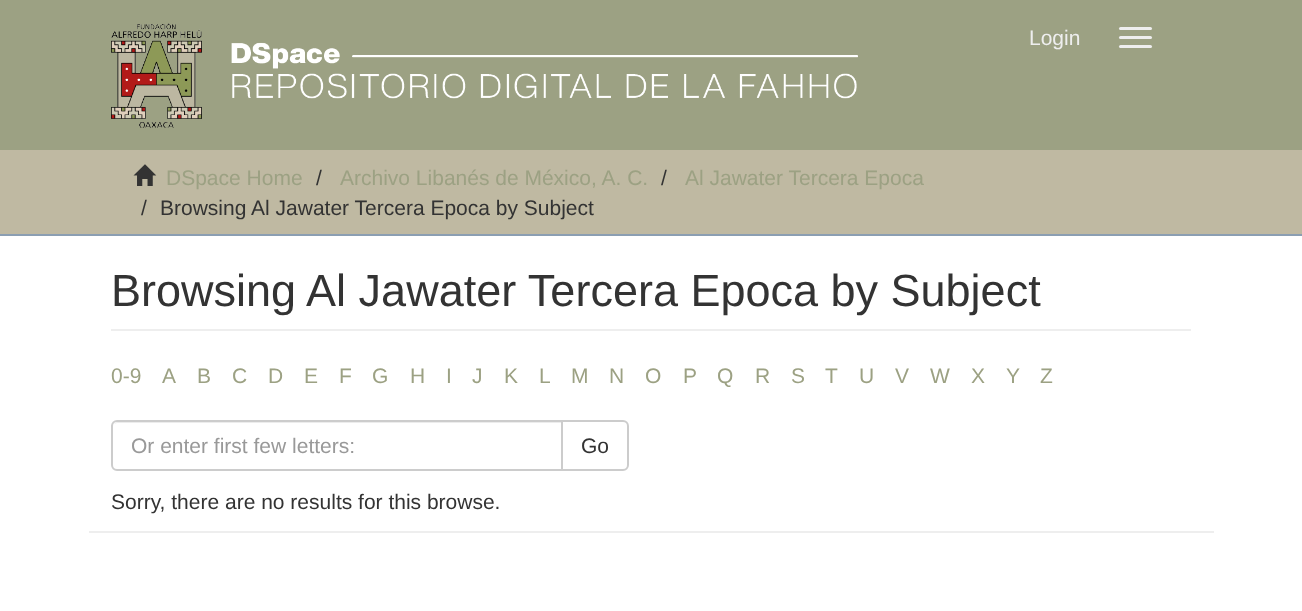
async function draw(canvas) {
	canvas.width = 1302;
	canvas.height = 611;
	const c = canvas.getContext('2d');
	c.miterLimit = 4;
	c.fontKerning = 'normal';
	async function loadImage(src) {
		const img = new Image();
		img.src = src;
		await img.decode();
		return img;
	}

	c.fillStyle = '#fff';
	c.fillRect(0, 0, 1302, 611);
	c.fillStyle = '#9ca183';
	c.fillRect(0, 0, 1302, 150);
	c.drawImage(await loadImage('img1.png'), 111, 23, 747, 105);
	c.font = '21px Liberation Sans';
	c.fillStyle = '#eee';
	c.fillText('Login', 1029, 45);
	c.beginPath();
	c.roundRect(1119, 27, 33, 3, 1.5);
	c.fill();
	c.beginPath();
	c.roundRect(1119, 36, 33, 3, 1.5);
	c.fill();
	c.beginPath();
	c.roundRect(1119, 45, 33, 3, 1.5);
	c.fill();
	c.fillStyle = '#bfb9a2';
	c.fillRect(0, 150, 1302, 84);
	c.fillStyle = '#8b9eb2';
	c.fillRect(0, 234, 1302, 2);
	c.drawImage(await loadImage('img2.png'), 133, 164, 24, 22);
	c.fillStyle = '#9ca183';
	c.fillText('DSpace Home', 166, 185);
	c.fillStyle = '#333';
	c.fillText('/', 316, 185);
	c.fillStyle = '#9ca183';
	c.fillText('Archivo Libanés de México, A. C.', 340, 185);
	c.fillStyle = '#333';
	c.fillText('/', 661, 185);
	c.fillStyle = '#9ca183';
	c.fillText('Al Jawater Tercera Epoca', 685, 185);
	c.fillStyle = '#333';
	c.fillText('/', 141, 215);
	c.fillText('Browsing Al Jawater Tercera Epoca by Subject', 160, 215);
	c.fillStyle = '#eee';
	c.fillRect(111, 329, 1080, 2);
	c.font = '45px Liberation Sans';
	c.fillStyle = '#333';
	c.fillText('Browsing Al Jawater Tercera Epoca by Subject', 111, 306);
	c.font = '21px Liberation Sans';
	c.fillStyle = '#9ca183';
	for (const [text, x, y] of [
		['0-9', 111, 383],
		['A', 162, 383],
		['B', 197, 383],
		['C', 232, 383],
		['D', 268, 383],
		['E', 304, 383],
		['F', 339, 383],
		['G', 372, 383],
		['H', 410, 383],
		['I', 446, 383],
		['J', 472, 383],
		['K', 504, 383],
		['L', 539, 383],
		['M', 571, 383],
		['N', 609, 383],
		['O', 645, 383],
		['P', 683, 383],
		['Q', 717, 383],
		['R', 755, 383],
		['S', 791, 383],
		['T', 825, 383],
		['U', 859, 383],
		['V', 895, 383],
		['W', 930, 383],
		['X', 971, 383],
		['Y', 1006, 383],
		['Z', 1040, 383],
	]) {
		c.fillText(text, x, y);
	}
	c.beginPath();
	c.roundRect(562, 421, 66, 49, [0, 5, 5, 0]);
	c.strokeStyle = '#ccc';
	c.lineWidth = 2;
	c.stroke();
	c.fillStyle = '#fff';
	c.beginPath();
	c.roundRect(111, 420, 452, 51, [6, 0, 0, 6]);
	c.fill();
	c.fillStyle = '#ececec';
	c.beginPath();
	c.moveTo(117, 423);
	c.lineTo(561, 423);
	c.lineTo(561, 422);
	c.lineTo(118, 422);
	c.bezierCurveTo(116, 422, 115, 423, 114, 424);
	c.closePath();
	c.fill();
	c.beginPath();
	c.roundRect(112, 421, 450, 49, [5, 0, 0, 5]);
	c.stroke();
	c.fillStyle = '#999';
	c.fillText('Or enter first few letters:', 131, 453);
	c.fillStyle = '#333';
	c.fillText('Go', 581, 453);
	c.fillText('Sorry, there are no results for this browse.', 111, 509);
	c.fillStyle = '#eee';
	c.fillRect(89, 531, 1125, 2);
}

draw(document.querySelector('canvas'));
